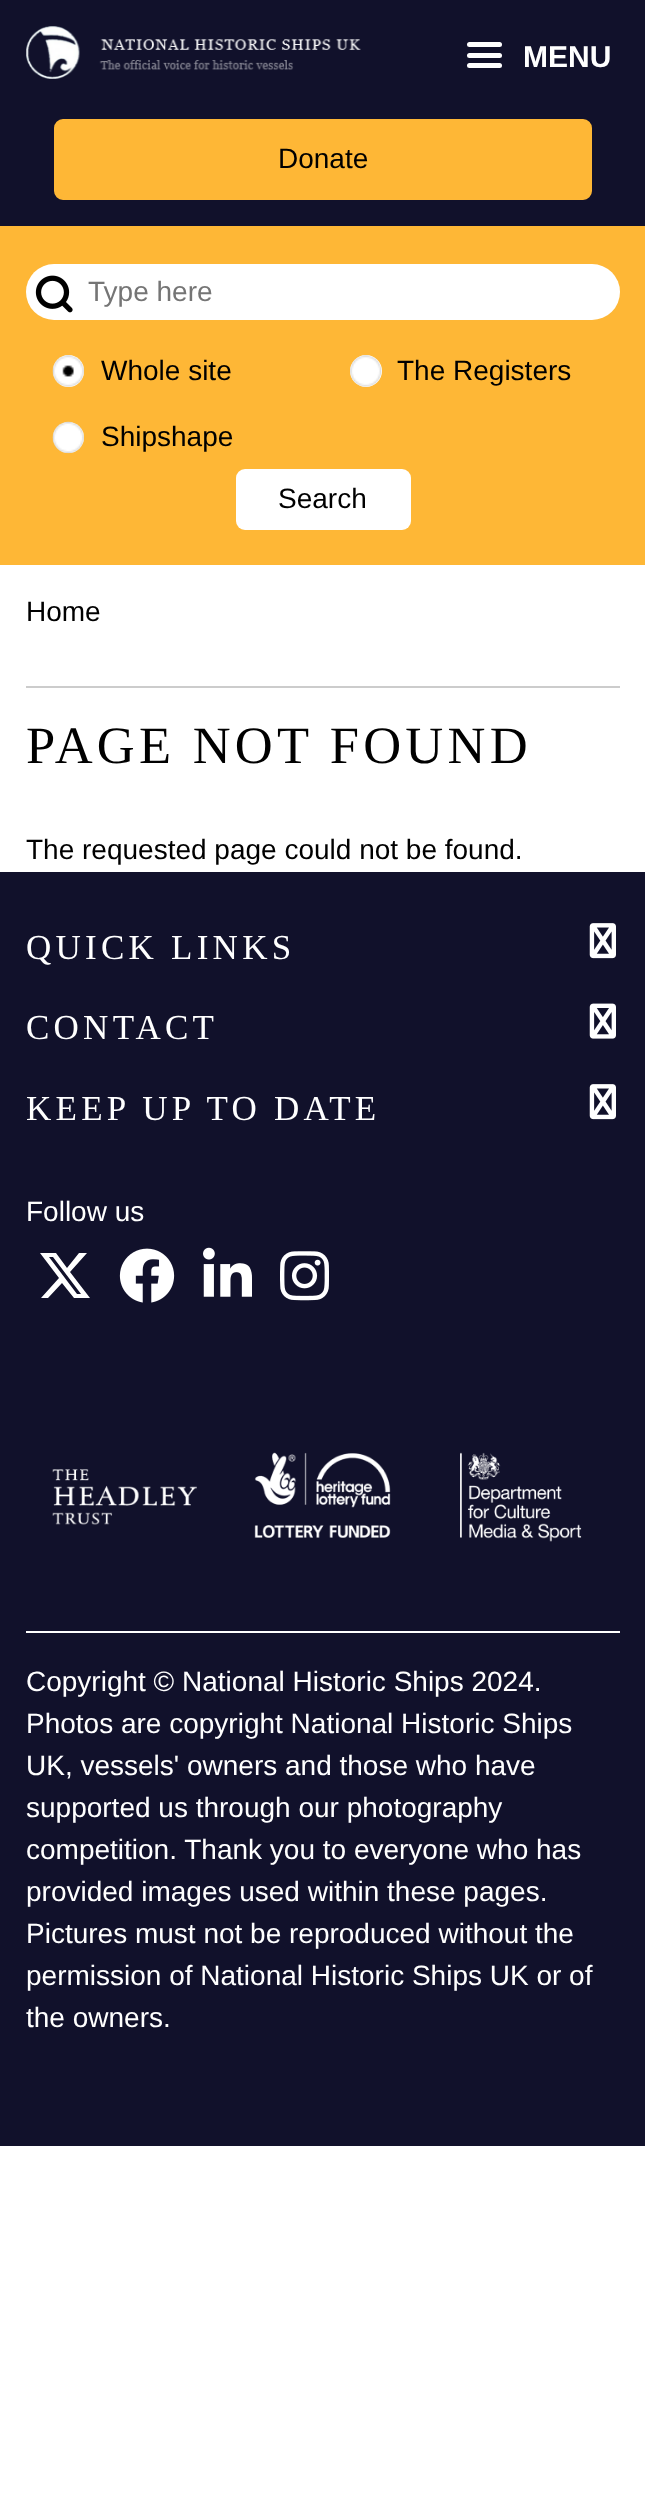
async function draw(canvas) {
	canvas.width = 645;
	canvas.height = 2520;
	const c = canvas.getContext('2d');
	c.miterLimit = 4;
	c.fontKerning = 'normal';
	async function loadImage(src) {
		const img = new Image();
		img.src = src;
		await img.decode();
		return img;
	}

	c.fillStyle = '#fff';
	c.fillRect(0, 0, 645, 2520);
	c.fillStyle = '#11112b';
	c.fillRect(0, 0, 645, 226);
	c.drawImage(await loadImage('img1.png'), 26, 26, 335, 53);
	c.fillStyle = '#fff';
	c.beginPath();
	c.roundRect(467, 42, 35, 5, 2.5);
	c.fill();
	c.beginPath();
	c.roundRect(467, 53, 35, 5, 2.5);
	c.fill();
	c.font = 'bold 30px Liberation Sans';
	c.fillText('MENU', 523, 67);
	c.beginPath();
	c.roundRect(467, 63, 35, 5, 2.5);
	c.fill();
	c.fillStyle = '#feb736';
	c.beginPath();
	c.roundRect(55, 120, 536, 79, 8);
	c.fill();
	c.strokeStyle = '#feb736';
	c.lineWidth = 2;
	c.stroke();
	c.font = '28px Liberation Sans';
	c.fillStyle = '#000';
	c.fillText('Donate', 278, 168);
	c.fillStyle = '#feb736';
	c.fillRect(0, 226, 645, 339);
	c.fillStyle = '#fff';
	c.beginPath();
	c.roundRect(26, 264, 594, 56, 28);
	c.fill();
	c.drawImage(await loadImage('img2.png'), 35, 275, 38, 38);
	c.fillStyle = '#757575';
	c.fillText('Type here', 88, 301);
	c.fillStyle = '#fff';
	c.beginPath();
	c.roundRect(53, 355, 31, 32, 15.5);
	c.fill();
	c.drawImage(await loadImage('img3.png'), 52, 355, 32, 32);
	c.fillStyle = '#000';
	c.fillText('Whole site', 101, 380);
	c.fillStyle = '#fff';
	c.beginPath();
	c.arc(366, 371, 16, 0, 2 * Math.PI);
	c.fill();
	c.drawImage(await loadImage('img4.png'), 350, 355, 32, 32);
	c.fillStyle = '#000';
	c.fillText('The Registers', 397, 380);
	c.fillStyle = '#fff';
	c.beginPath();
	c.arc(68.5, 437.5, 15.5, 0, 2 * Math.PI);
	c.fill();
	c.drawImage(await loadImage('img5.png'), 52, 421, 32, 33);
	c.fillStyle = '#000';
	c.fillText('Shipshape', 101, 446);
	c.fillStyle = '#fff';
	c.beginPath();
	c.roundRect(236, 469, 175, 61, 9);
	c.fill();
	c.fillStyle = '#000';
	c.fillText('Search', 278, 508);
	c.fillStyle = '#ccc';
	c.fillRect(26, 686, 594, 2);
	c.fillStyle = '#000';
	c.fillText('Home', 26, 621);
	c.letterSpacing = '4.25px';
	c.font = '52.5px Liberation Serif';
	c.fillText('PAGE NOT FOUND', 26, 763);
	c.letterSpacing = '0px';
	c.font = '28px Liberation Sans';
	c.fillText('The requested page could not be found.', 26, 859);
	c.fillStyle = '#11112b';
	c.fillRect(0, 872, 645, 1274);
	c.letterSpacing = '4.25px';
	c.font = '35px Liberation Serif';
	c.fillStyle = '#fff';
	c.fillText('QUICK LINKS', 26, 959);
	c.drawImage(await loadImage('img6.png'), 589, 923, 27, 36);
	c.fillText('CONTACT', 26, 1039);
	c.drawImage(await loadImage('img7.png'), 589, 1003, 27, 36);
	c.fillText('KEEP UP TO DATE', 26, 1120);
	c.drawImage(await loadImage('img6.png'), 589, 1084, 27, 36);
	c.letterSpacing = '0px';
	c.font = '28px Liberation Sans';
	c.fillText('Follow us', 26, 1221);
	c.beginPath();
	c.moveTo(79, 1253);
	c.lineTo(87, 1253);
	c.lineTo(70, 1272);
	c.lineTo(90, 1298);
	c.lineTo(74, 1298);
	c.lineTo(62, 1283);
	c.lineTo(48, 1298);
	c.lineTo(41, 1298);
	c.lineTo(59, 1278);
	c.lineTo(40, 1253);
	c.lineTo(56, 1253);
	c.lineTo(67, 1268);
	c.closePath();
	c.moveTo(77, 1294);
	c.lineTo(81, 1294);
	c.lineTo(53, 1257);
	c.lineTo(49, 1257);
	c.closePath();
	c.fill();
	c.drawImage(await loadImage('img8.png'), 119, 1248, 56, 55);
	c.drawImage(await loadImage('img9.png'), 203, 1247, 49, 50);
	c.drawImage(await loadImage('img10.png'), 280, 1251, 49, 50);
	c.drawImage(await loadImage('img11.png'), 52, 1469, 145, 56);
	c.drawImage(await loadImage('img12.png'), 254, 1452, 137, 86);
	c.drawImage(await loadImage('img13.png'), 460, 1452, 122, 90);
	c.fillRect(26, 1631, 594, 2);
	for (const [text, x, y] of [
		['Copyright © National Historic Ships 2024.', 26, 1691],
		['Photos are copyright National Historic Ships', 26, 1733],
		['UK, vessels\' owners and those who have', 26, 1775],
		['supported us through our photography', 26, 1817],
		['competition. Thank you to everyone who has', 26, 1859],
		['provided images used within these pages.', 26, 1901],
		['Pictures must not be reproduced without the', 26, 1943],
		['permission of National Historic Ships UK or of', 26, 1985],
		['the owners.', 26, 2027],
	]) {
		c.fillText(text, x, y);
	}
}

draw(document.querySelector('canvas'));
